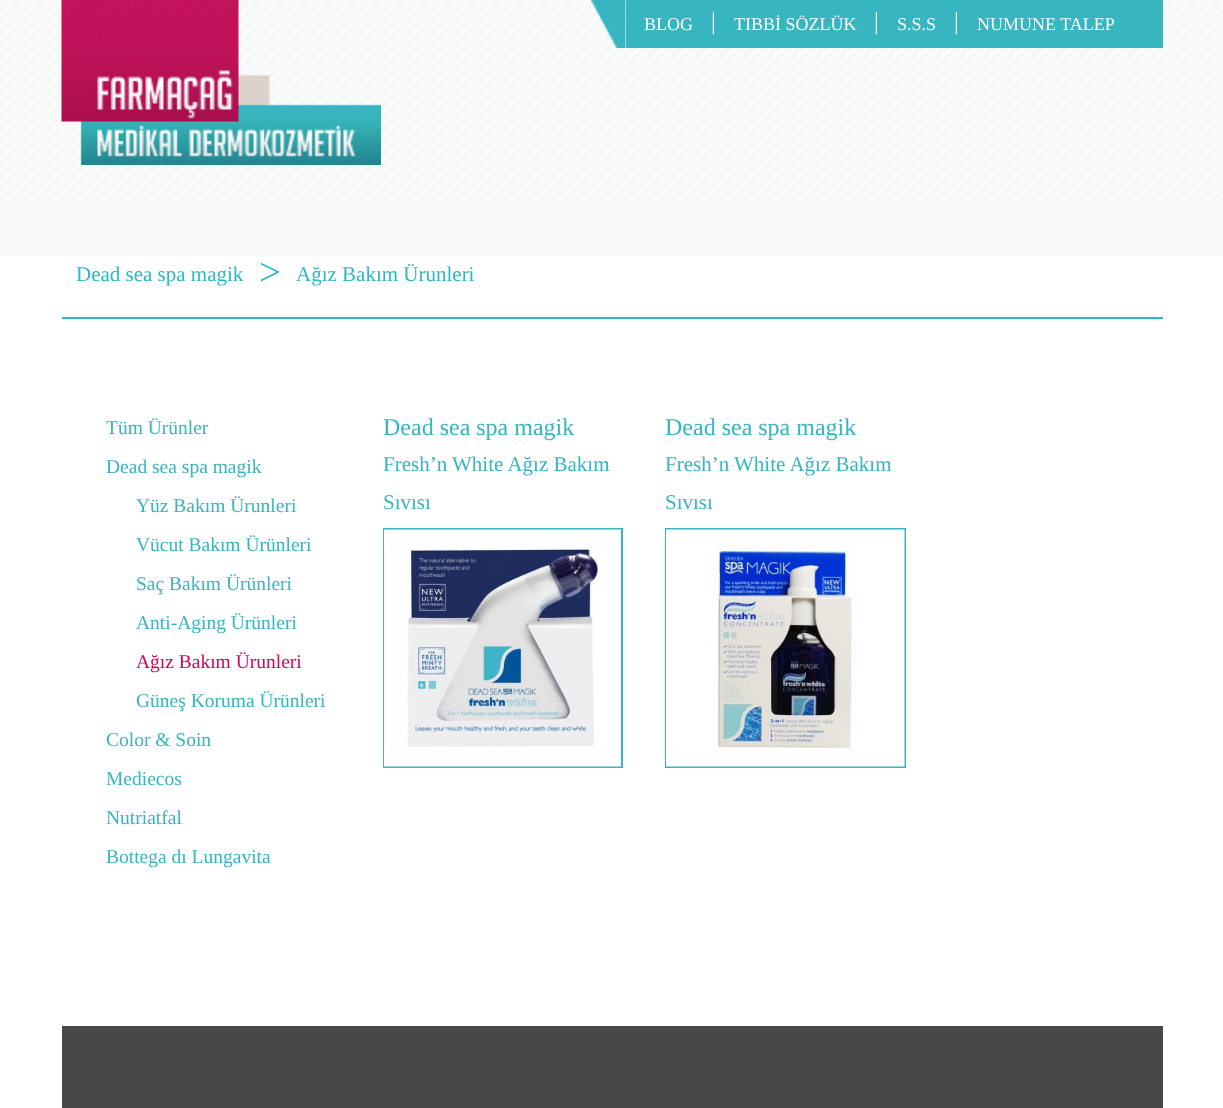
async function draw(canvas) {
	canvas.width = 1223;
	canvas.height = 1108;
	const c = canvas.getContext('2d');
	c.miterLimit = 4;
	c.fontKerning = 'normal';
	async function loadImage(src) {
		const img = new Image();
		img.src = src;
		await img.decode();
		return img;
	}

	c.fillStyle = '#fff';
	c.fillRect(0, 0, 1223, 1108);
	c.drawImage(await loadImage('img1.png'), 0, 0, 1223, 256);
	c.drawImage(await loadImage('img2.png'), 61, 0, 320, 165);
	c.fillStyle = '#37b5c0';
	c.fillRect(626, 0, 537, 48);
	c.drawImage(await loadImage('img3.png'), 591, 0, 35, 48);
	c.font = '18px Liberation Serif';
	c.fillStyle = '#fff';
	c.fillText('BLOG', 644, 30);
	c.font = '24px Liberation Serif';
	c.fillText('|', 711, 29);
	c.font = '18px Liberation Serif';
	c.fillText('TIBBİ SÖZLÜK', 734, 30);
	c.font = '24px Liberation Serif';
	c.fillText('|', 874, 29);
	c.font = '18px Liberation Serif';
	c.fillText('S.S.S', 897, 30);
	c.font = '24px Liberation Serif';
	c.fillText('|', 954, 29);
	c.font = '18px Liberation Serif';
	c.fillText('NUMUNE TALEP', 977, 30);
	c.fillStyle = '#2cb8c4';
	c.fillRect(62, 317, 1101, 2);
	c.font = '21px Liberation Serif';
	c.fillText('Dead sea spa magik', 76, 281);
	c.font = '39px Liberation Serif';
	c.fillText('>', 259, 285);
	c.font = '21px Liberation Serif';
	c.fillText('Ağız Bakım Ürunleri', 296, 281);
	c.font = '19.5px Liberation Serif';
	c.fillStyle = '#37b5c0';
	for (const [text, x, y] of [
		['Tüm Ürünler', 106, 434],
		['Dead sea spa magik', 106, 473],
		['Yüz Bakım Ürunleri', 136, 512],
		['Vücut Bakım Ürünleri', 136, 551],
		['Saç Bakım Ürünleri', 136, 590],
		['Anti-Aging Ürünleri', 136, 629],
	]) {
		c.fillText(text, x, y);
	}
	c.fillStyle = '#dd005b';
	c.fillText('Ağız Bakım Ürunleri', 136, 668);
	c.fillStyle = '#37b5c0';
	for (const [text, x, y] of [
		['Güneş Koruma Ürünleri', 136, 707],
		['Color & Soin', 106, 746],
		['Mediecos', 106, 785],
		['Nutriatfal', 106, 824],
		['Bottega dı Lungavita', 106, 863],
	]) {
		c.fillText(text, x, y);
	}
	c.font = '24px Liberation Serif';
	c.fillText('Dead sea spa magik', 383, 435);
	c.font = '21px Liberation Serif';
	c.fillText('Fresh’n White Ağız Bakım', 383, 471);
	c.fillText('Sıvısı', 383, 509);
	c.strokeStyle = '#37b5c0';
	c.lineWidth = 2;
	c.strokeRect(384, 529, 238, 238);
	c.drawImage(await loadImage('img4.png'), 384, 529, 237, 238);
	c.font = '24px Liberation Serif';
	c.fillText('Dead sea spa magik', 665, 435);
	c.font = '21px Liberation Serif';
	c.fillText('Fresh’n White Ağız Bakım', 665, 471);
	c.fillText('Sıvısı', 665, 509);
	c.strokeRect(666, 529, 239, 238);
	c.drawImage(await loadImage('img5.png'), 666, 529, 239, 238);
	c.fillStyle = '#484848';
	c.fillRect(62, 1026, 1101, 82);
}

draw(document.querySelector('canvas'));
